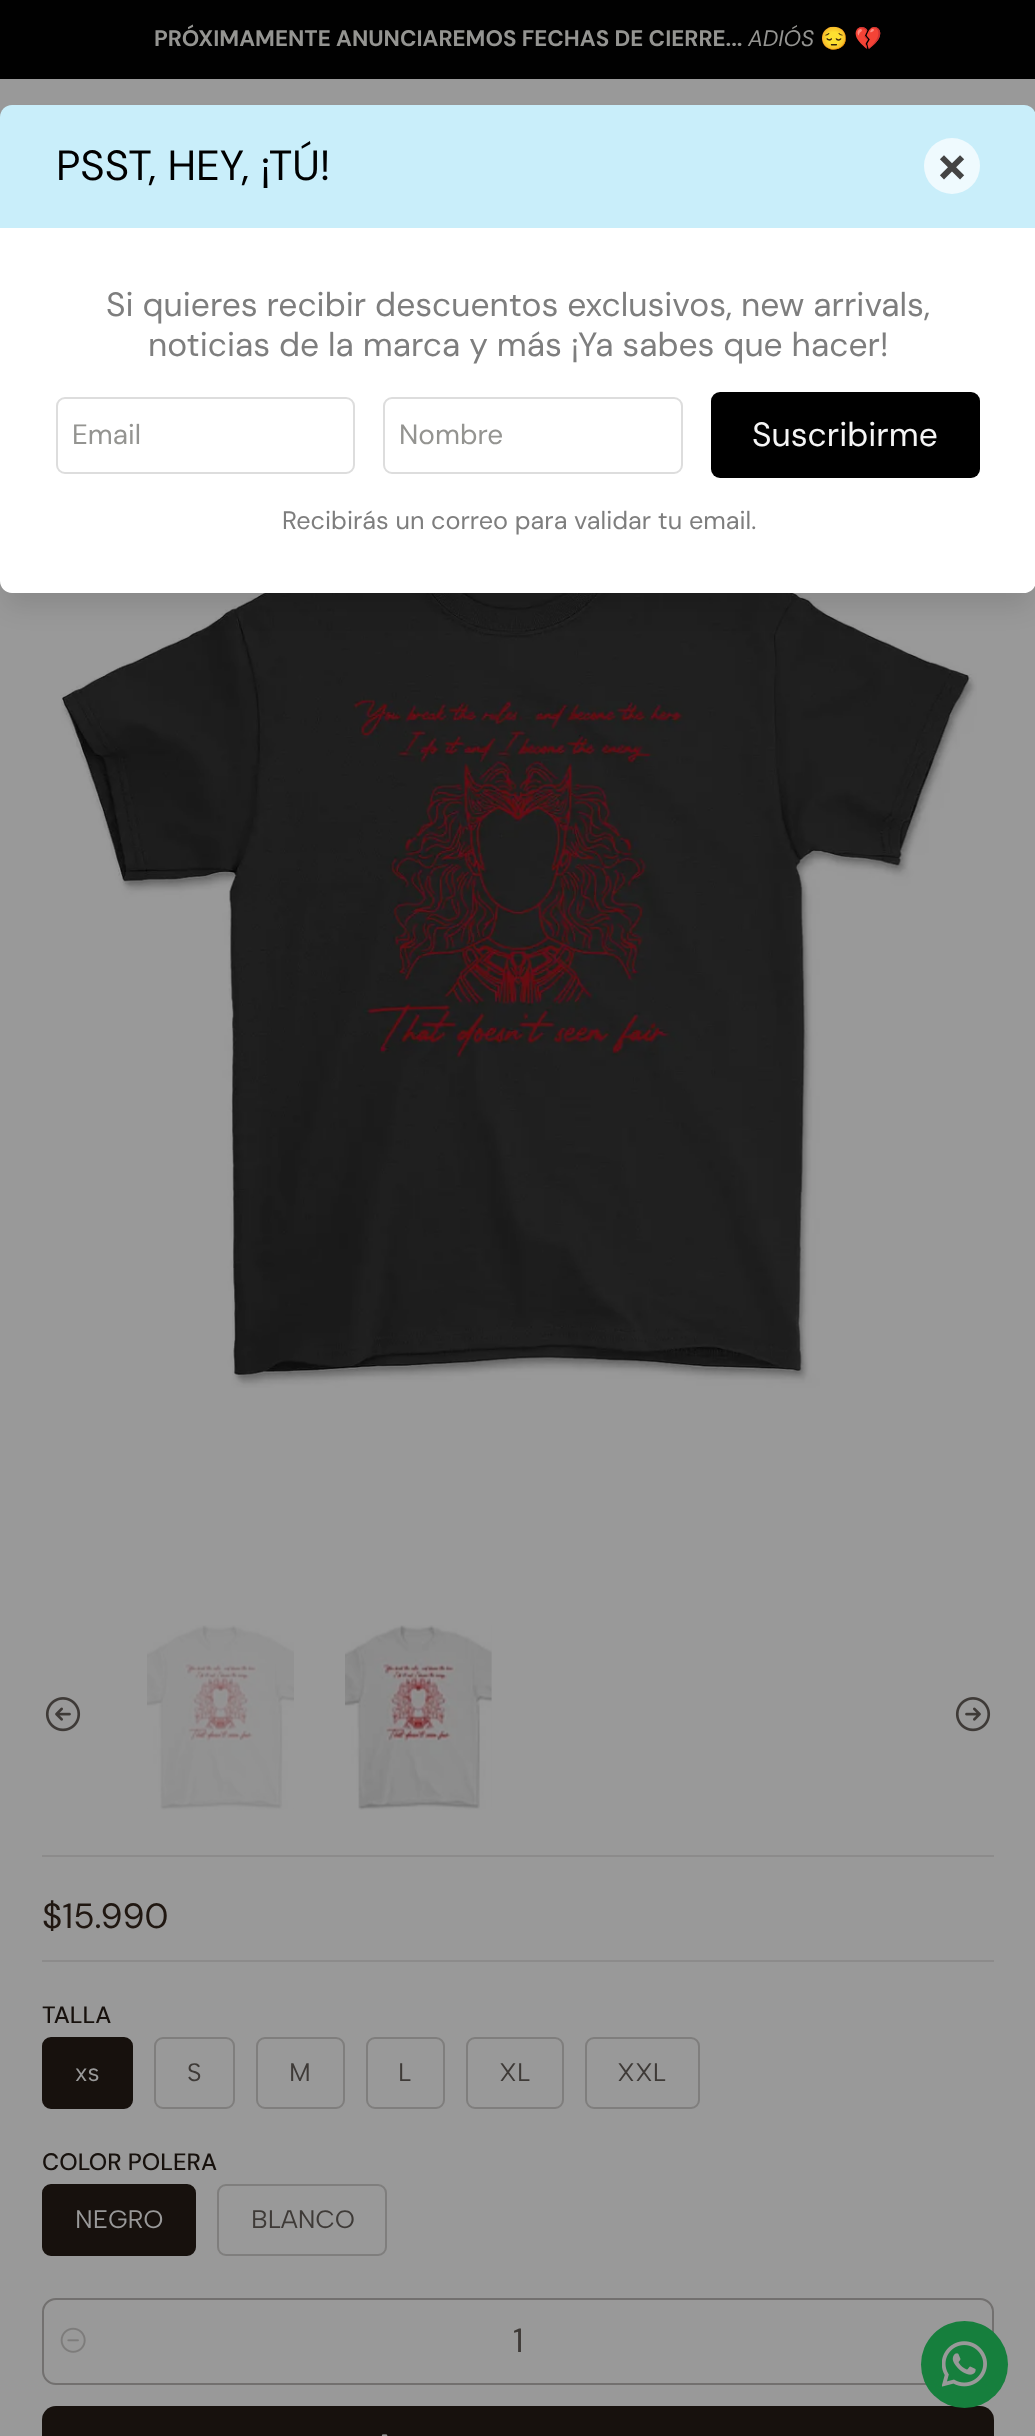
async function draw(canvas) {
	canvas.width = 1035;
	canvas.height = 2436;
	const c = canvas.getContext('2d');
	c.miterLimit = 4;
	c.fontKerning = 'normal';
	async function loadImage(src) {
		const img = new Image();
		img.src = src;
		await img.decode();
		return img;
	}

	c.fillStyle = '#999';
	c.fillRect(0, 0, 1035, 2436);
	c.fillStyle = '#010101';
	c.fillRect(0, 0, 1035, 79);
	c.font = 'bold 22.4px DM Sans';
	c.fillStyle = '#949491';
	c.fillText('PRÓXIMAMENTE ANUNCIAREMOS FECHAS DE CIERRE...', 154, 46);
	c.font = 'italic 22.4px DM Sans';
	c.fillText('ADIÓS', 748, 46);
	c.font = '22.4px Noto Color Emoji';
	c.fillText('😔', 820, 46);
	c.fillText('💔', 854, 46);
	c.drawImage(await loadImage('img1.png'), 60, 593, 917, 795);
	c.drawImage(await loadImage('img2.png'), 45, 1697, 36, 35);
	c.drawImage(await loadImage('img3.png'), 147, 1625, 147, 185);
	c.drawImage(await loadImage('img4.png'), 345, 1625, 147, 185);
	c.drawImage(await loadImage('img5.png'), 955, 1697, 36, 35);
	c.fillStyle = '#8c8b8b';
	c.fillRect(42, 1855, 952, 2);
	c.font = '35px DM Sans';
	c.fillStyle = '#201711';
	c.fillText('$15.990', 42, 1928);
	c.fillStyle = '#8c8b8b';
	c.fillRect(42, 1960, 952, 2);
	c.font = '500 23.75px DM Sans';
	c.fillStyle = '#17110d';
	c.fillText('TALLA', 42, 2023);
	c.beginPath();
	c.roundRect(43, 2038, 89, 70, 8);
	c.fill();
	c.strokeStyle = '#17110d';
	c.lineWidth = 2;
	c.stroke();
	c.font = '25.25px Albert Sans';
	c.fillStyle = '#999';
	c.fillText('xs', 75, 2081);
	c.beginPath();
	c.roundRect(155, 2038, 79, 70, 8);
	c.strokeStyle = '#7f7e7d';
	c.stroke();
	c.fillStyle = '#3e3a37';
	c.fillText('S', 187, 2081);
	c.beginPath();
	c.roundRect(257, 2038, 87, 70, 8);
	c.stroke();
	c.fillText('M', 289, 2081);
	c.beginPath();
	c.roundRect(367, 2038, 77, 70, 8);
	c.stroke();
	c.fillText('L', 398, 2081);
	c.beginPath();
	c.roundRect(467, 2038, 96, 70, 8);
	c.stroke();
	c.fillText('XL', 499, 2081);
	c.beginPath();
	c.roundRect(586, 2038, 113, 70, 8);
	c.stroke();
	c.fillText('XXL', 617, 2081);
	c.font = '500 23.75px DM Sans';
	c.fillStyle = '#17110d';
	c.fillText('COLOR POLERA', 42, 2170);
	c.beginPath();
	c.roundRect(43, 2185, 152, 70, 8);
	c.fill();
	c.strokeStyle = '#17110d';
	c.stroke();
	c.font = '25.25px Albert Sans';
	c.fillStyle = '#999';
	c.fillText('NEGRO', 75, 2228);
	c.beginPath();
	c.roundRect(218, 2185, 168, 70, 8);
	c.strokeStyle = '#7f7e7d';
	c.stroke();
	c.fillStyle = '#3e3a37';
	c.fillText('BLANCO', 251, 2228);
	c.beginPath();
	c.roundRect(43, 2299, 950, 85, 13);
	c.strokeStyle = '#72706f';
	c.stroke();
	c.drawImage(await loadImage('img6.png'), 60, 2327, 26, 26);
	c.font = '33.6px DM Sans';
	c.fillText('1', 513, 2352);
	c.fillStyle = '#17110d';
	c.beginPath();
	c.roundRect(42, 2406, 952, 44, 14);
	c.fill();
	c.drawImage(await loadImage('img7.png'), 381, 2434, 7, 2);
	c.fillStyle = '#0000001a';
	c.filter = 'blur(13px)';
	c.beginPath();
	c.roundRect(5, 128, 1026, 478, 7);
	c.fill();
	c.filter = 'none';
	c.fillStyle = '#c9eefa';
	c.beginPath();
	c.moveTo(12, 105);
	c.lineTo(1024, 105);
	c.bezierCurveTo(1030.5, 105, 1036, 110.5, 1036, 117);
	c.lineTo(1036, 228);
	c.lineTo(0, 228);
	c.lineTo(0, 117);
	c.bezierCurveTo(0, 110.5, 5.5, 105, 12, 105);
	c.closePath();
	c.fill();
	c.font = '42px DM Sans';
	c.fillStyle = '#000';
	c.fillText('PSST, HEY, ¡TÚ!', 56, 180);
	c.fillStyle = '#effafe';
	c.beginPath();
	c.arc(952, 166, 28, 0, 2 * Math.PI);
	c.fill();
	c.font = 'bold 50px DejaVu Sans Mono';
	c.fillStyle = '#444';
	c.fillText('×', 937, 183);
	c.fillStyle = '#fff';
	c.beginPath();
	c.moveTo(0, 228);
	c.lineTo(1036, 228);
	c.lineTo(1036, 581);
	c.bezierCurveTo(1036, 587.5, 1030.5, 593, 1024, 593);
	c.lineTo(12, 593);
	c.bezierCurveTo(5.5, 593, 0, 587.5, 0, 581);
	c.closePath();
	c.fill();
	c.font = '33.6px DM Sans';
	c.fillStyle = '#7e7e7e';
	c.fillText('Si quieres recibir descuentos exclusivos, new arrivals,', 106, 316);
	c.fillText('noticias de la marca y más ¡Ya sabes que hacer!', 148, 356);
	c.beginPath();
	c.roundRect(57, 398, 297, 75, 8);
	c.strokeStyle = '#ddd';
	c.stroke();
	c.font = '28px DM Sans';
	c.fillStyle = '#949491';
	c.fillText('Email', 72, 444);
	c.beginPath();
	c.roundRect(384, 398, 298, 75, 8);
	c.stroke();
	c.fillText('Nombre', 399, 444);
	c.fillStyle = '#000';
	c.beginPath();
	c.roundRect(711, 392, 269, 86, 9);
	c.fill();
	c.font = '33.6px DM Sans';
	c.fillStyle = '#f5f5f5';
	c.fillText('Suscribirme', 752, 446);
	c.font = '25.25px DM Sans';
	c.fillStyle = '#7e7e7e';
	c.fillText('Recibirás un correo para validar tu email.', 282, 529);
	c.fillStyle = '#167f3d';
	c.beginPath();
	c.arc(964.5, 2364.5, 43.5, 0, 2 * Math.PI);
	c.fill();
	c.drawImage(await loadImage('img8.png'), 942, 2341, 45, 46);
}

draw(document.querySelector('canvas'));
